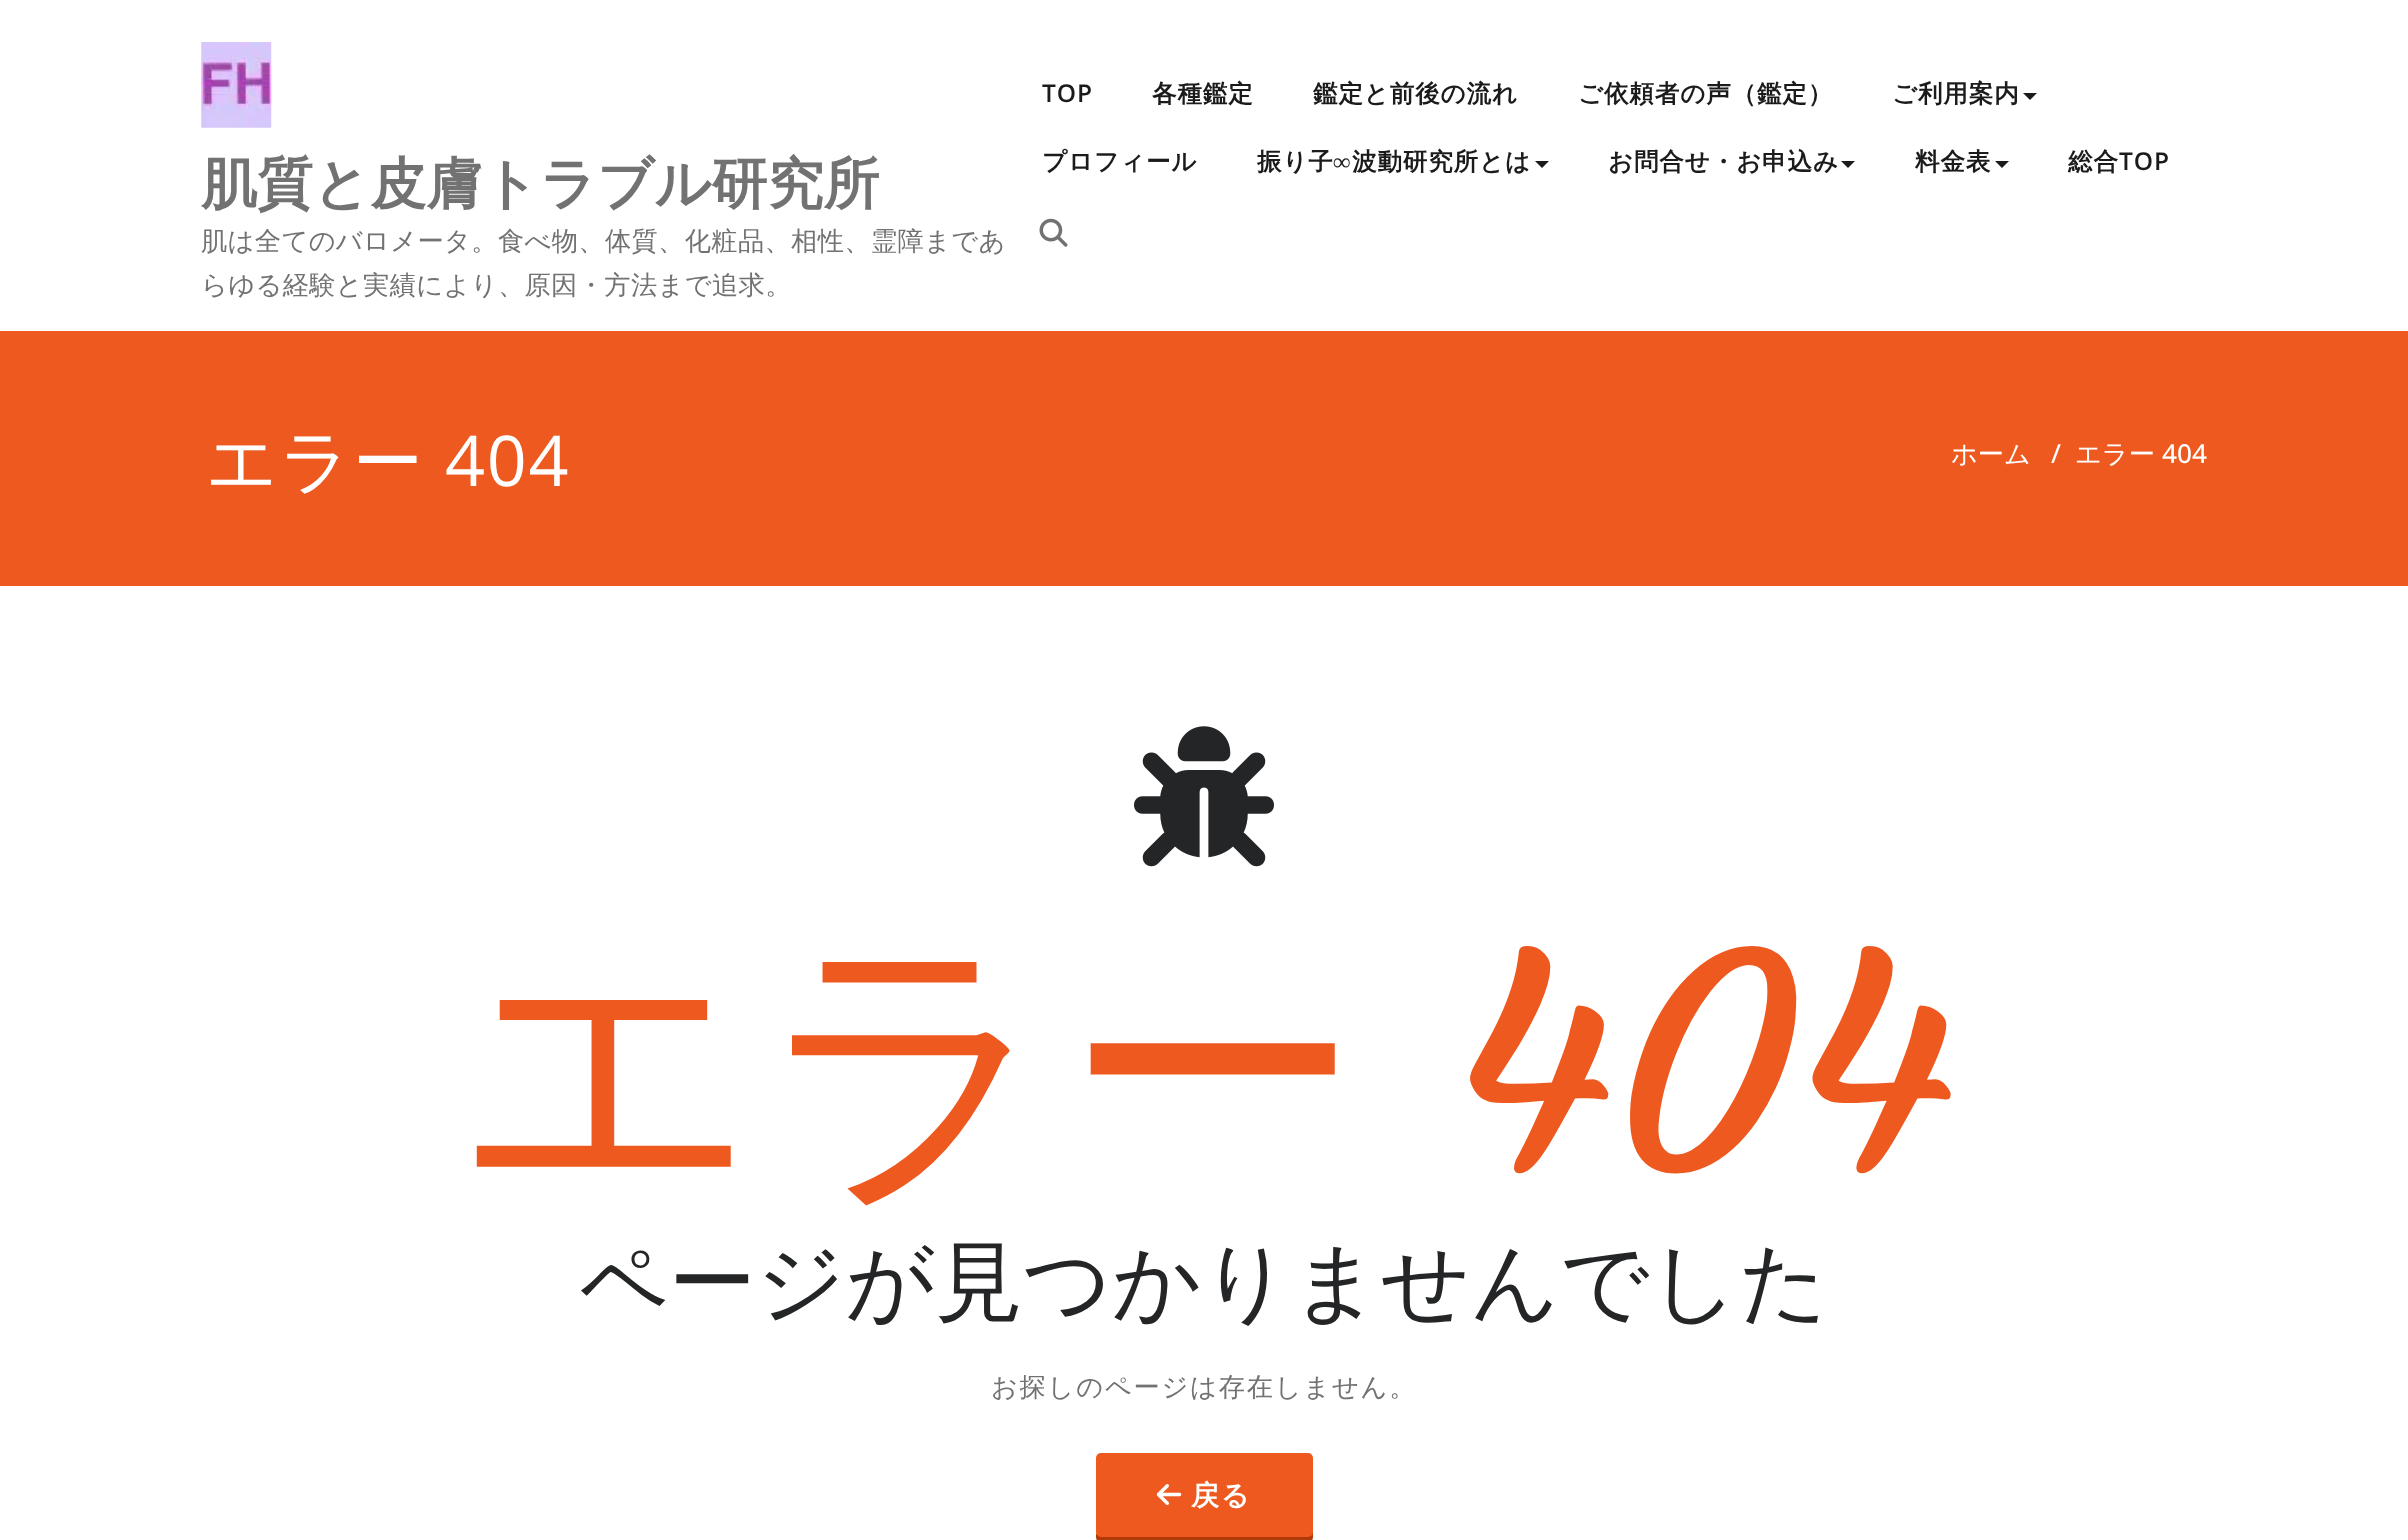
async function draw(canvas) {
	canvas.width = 2408;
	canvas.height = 1540;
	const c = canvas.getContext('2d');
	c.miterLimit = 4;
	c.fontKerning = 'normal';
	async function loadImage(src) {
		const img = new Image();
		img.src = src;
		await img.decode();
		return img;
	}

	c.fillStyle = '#fff';
	c.fillRect(0, 0, 2408, 1540);
	c.letterSpacing = '0.9px';
	c.font = '600 24.5px Open Sans';
	c.fillStyle = '#1b1b1b';
	c.fillText('TOP', 1042, 102);
	c.font = 'bold 24.5px WenQuanYi Zen Hei';
	for (const [text, x, y] of [
		['各種鑑定', 1152, 102],
		['鑑定と前後の流れ', 1313, 102],
		['ご依頼者の声（鑑定）', 1578, 102],
		['ご利用案内', 1892, 102],
	]) {
		c.fillText(text, x, y);
	}
	c.beginPath();
	c.moveTo(2023, 93);
	c.lineTo(2037, 93);
	c.lineTo(2030, 100);
	c.closePath();
	c.fill();
	c.fillText('プロフィール', 1042, 170);
	c.fillText('振り子', 1257, 170);
	c.font = 'bold 24.5px Liberation Serif';
	c.fillText('∞', 1333, 170);
	c.font = 'bold 24.5px WenQuanYi Zen Hei';
	c.fillText('波動研究所とは', 1352, 170);
	c.beginPath();
	c.moveTo(1535, 161);
	c.lineTo(1549, 161);
	c.lineTo(1542, 168);
	c.closePath();
	c.fill();
	c.fillText('お問合せ・お申込み', 1608, 170);
	c.beginPath();
	c.moveTo(1841, 161);
	c.lineTo(1855, 161);
	c.lineTo(1848, 168);
	c.closePath();
	c.fill();
	c.fillText('料金表', 1915, 170);
	c.beginPath();
	c.moveTo(1995, 161);
	c.lineTo(2009, 161);
	c.lineTo(2002, 168);
	c.closePath();
	c.fill();
	c.fillText('総合', 2068, 170);
	c.font = '600 24.5px Open Sans';
	c.fillText('TOP', 2119, 170);
	c.drawImage(await loadImage('img1.png'), 1039, 218, 29, 29);
	c.drawImage(await loadImage('img2.png'), 201, 42, 71, 86);
	c.letterSpacing = '0px';
	c.font = 'bold 56px WenQuanYi Zen Hei';
	c.fillStyle = '#727272';
	c.fillText('肌質と皮膚トラブル研究所', 201, 203);
	c.letterSpacing = '0.35px';
	c.font = '500 26.25px WenQuanYi Zen Hei';
	c.fillText('肌は全てのバロメータ。食べ物、体質、化粧品、相性、霊障まであ', 201, 250);
	c.fillText('らゆる経験と実績により、原因・方法まで追求。', 201, 294);
	c.fillStyle = '#ee591f';
	c.fillRect(0, 331, 2408, 255);
	c.letterSpacing = '1.75px';
	c.font = '500 70px WenQuanYi Zen Hei';
	c.fillStyle = '#fff';
	c.fillText('エラー', 206, 486);
	c.font = '70px Open Sans';
	c.fillText('404', 445, 486);
	c.letterSpacing = '0px';
	c.font = '500 26.25px WenQuanYi Zen Hei';
	c.fillText('ホーム', 1951, 463);
	c.font = '500 26.25px Open Sans';
	c.fillText('/', 2051, 463);
	c.font = '500 26.25px WenQuanYi Zen Hei';
	c.fillText('エラー', 2075, 463);
	c.font = '500 26.25px Open Sans';
	c.fillText('404', 2162, 463);
	c.drawImage(await loadImage('img3.png'), 1134, 726, 140, 141);
	c.font = '500 297.5px WenQuanYi Zen Hei';
	c.fillStyle = '#ee591f';
	c.fillText('エラー', 455, 1172);
	c.font = '297.5px Courgette';
	c.fillText('404', 1453, 1172);
	c.font = '500 87.5px WenQuanYi Zen Hei';
	c.fillStyle = '#242526';
	c.fillText('ページが見つかりませんでした', 579, 1312);
	c.letterSpacing = '1.75px';
	c.font = '500 26.25px WenQuanYi Zen Hei';
	c.fillStyle = '#727272';
	c.fillText('お探しのページは存在しません。', 991, 1396);
	c.fillStyle = '#b2390a';
	c.beginPath();
	c.moveTo(1096, 1533);
	c.lineTo(1096, 1537);
	c.bezierCurveTo(1096, 1540, 1098, 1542, 1101, 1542);
	c.lineTo(1308, 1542);
	c.bezierCurveTo(1311, 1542, 1313, 1540, 1313, 1537);
	c.lineTo(1313, 1463);
	c.lineTo(1312, 1461);
	c.lineTo(1312, 1531);
	c.bezierCurveTo(1312, 1534, 1310, 1536, 1307, 1536);
	c.lineTo(1101, 1536);
	c.bezierCurveTo(1099, 1536, 1097, 1535, 1096, 1533);
	c.closePath();
	c.fill();
	c.fillStyle = '#ee591f';
	c.beginPath();
	c.roundRect(1096, 1453, 217, 84, 5);
	c.fill();
	c.drawImage(await loadImage('img4.png'), 1156, 1484, 26, 21);
	c.font = 'bold 28px WenQuanYi Zen Hei';
	c.fillStyle = '#fff';
	c.fillText('戻る', 1191, 1505);
}

draw(document.querySelector('canvas'));
